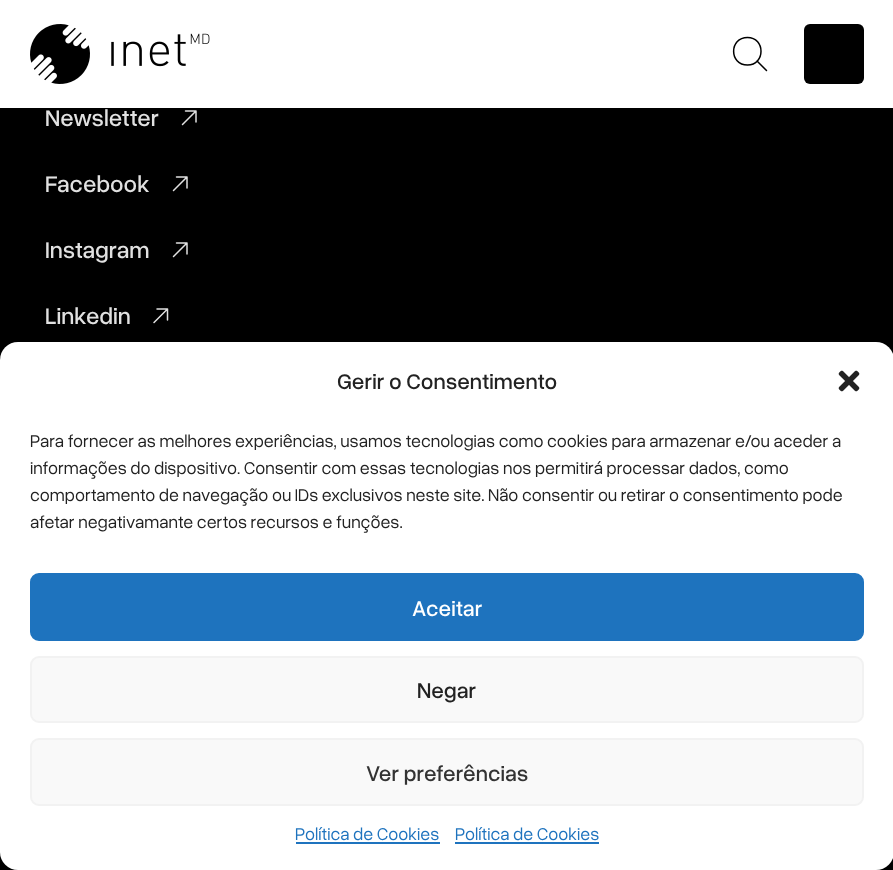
async function draw(canvas) {
	canvas.width = 893;
	canvas.height = 870;
	const c = canvas.getContext('2d');
	c.miterLimit = 4;
	c.fontKerning = 'normal';
	async function loadImage(src) {
		const img = new Image();
		img.src = src;
		await img.decode();
		return img;
	}

	c.fillStyle = '#000';
	c.fillRect(0, 0, 893, 870);
	c.fillStyle = '#fff';
	c.fillRect(0, 0, 893, 108);
	c.drawImage(await loadImage('img1.png'), 30, 24, 180, 60);
	c.beginPath();
	c.moveTo(747.5, 65);
	c.bezierCurveTo(765.5, 65, 765.5, 37.5, 747.5, 37.5);
	c.bezierCurveTo(729, 37.5, 729, 65, 747.5, 65);
	c.closePath();
	c.moveTo(766.5, 70.5);
	c.lineTo(757, 61);
	c.strokeStyle = '#000';
	c.lineWidth = 1.5;
	c.lineCap = 'round';
	c.lineJoin = 'round';
	c.stroke();
	c.fillStyle = '#000';
	c.beginPath();
	c.roundRect(804, 24, 60, 60, 6);
	c.fill();
	c.font = '500 24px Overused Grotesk';
	c.fillStyle = '#e1e1e1';
	c.fillText('Newsletter', 45, 126);
	c.beginPath();
	c.moveTo(182.5, 124.5);
	c.lineTo(196, 111);
	c.moveTo(196, 111);
	c.lineTo(185.5, 111);
	c.moveTo(196, 111);
	c.lineTo(196, 122);
	c.moveTo(182.5, 124.5);
	c.lineTo(196, 111);
	c.moveTo(196, 111);
	c.lineTo(185.5, 111);
	c.moveTo(196, 111);
	c.lineTo(196, 122);
	c.strokeStyle = '#e1e1e1';
	c.stroke();
	c.fillText('Facebook', 45, 192);
	c.beginPath();
	c.moveTo(173.5, 190.5);
	c.lineTo(187, 177);
	c.moveTo(187, 177);
	c.lineTo(176.5, 177);
	c.moveTo(187, 177);
	c.lineTo(187, 188);
	c.moveTo(173.5, 190.5);
	c.lineTo(187, 177);
	c.moveTo(187, 177);
	c.lineTo(176.5, 177);
	c.moveTo(187, 177);
	c.lineTo(187, 188);
	c.stroke();
	c.fillText('Instagram', 45, 258);
	c.beginPath();
	c.moveTo(173.5, 256.5);
	c.lineTo(187, 243);
	c.moveTo(187, 243);
	c.lineTo(176.5, 243);
	c.moveTo(187, 243);
	c.lineTo(187, 254);
	c.moveTo(173.5, 256.5);
	c.lineTo(187, 243);
	c.moveTo(187, 243);
	c.lineTo(176.5, 243);
	c.moveTo(187, 243);
	c.lineTo(187, 254);
	c.stroke();
	c.fillText('Linkedin', 45, 324);
	c.beginPath();
	c.moveTo(154, 322.5);
	c.lineTo(167.5, 309);
	c.moveTo(167.5, 309);
	c.lineTo(157, 309);
	c.moveTo(167.5, 309);
	c.lineTo(167.5, 320);
	c.moveTo(154, 322.5);
	c.lineTo(167.5, 309);
	c.moveTo(167.5, 309);
	c.lineTo(157, 309);
	c.moveTo(167.5, 309);
	c.lineTo(167.5, 320);
	c.stroke();
	c.fillStyle = '#fff';
	c.beginPath();
	c.roundRect(0, 342, 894, 528, 18);
	c.fill();
	c.font = '500 22.5px Overused Grotesk';
	c.fillStyle = '#222';
	c.fillText('Gerir o Consentimento', 337, 389);
	c.drawImage(await loadImage('img2.png'), 838, 370, 22, 22);
	c.font = '18px Overused Grotesk';
	for (const [text, x, y] of [
		['Para fornecer as melhores experiências, usamos tecnologias como cookies para armazenar e/ou aceder a', 30, 447],
		['informações do dispositivo. Consentir com essas tecnologias nos permitirá processar dados, como', 30, 474],
		['comportamento de navegação ou IDs exclusivos neste site. Não consentir ou retirar o consentimento pode', 30, 501],
		['afetar negativamante certos recursos e funções.', 30, 528],
	]) {
		c.fillText(text, x, y);
	}
	c.fillStyle = '#1e73be';
	c.beginPath();
	c.roundRect(31, 574, 832, 66, 8);
	c.fill();
	c.strokeStyle = '#1e73be';
	c.lineWidth = 2;
	c.lineJoin = 'miter';
	c.stroke();
	c.font = '500 22.5px Overused Grotesk';
	c.fillStyle = '#fff';
	c.fillText('Aceitar', 412, 616);
	c.fillStyle = '#f9f9f9';
	c.beginPath();
	c.roundRect(31, 657, 832, 65, 8);
	c.fill();
	c.strokeStyle = '#f2f2f2';
	c.stroke();
	c.fillStyle = '#222';
	c.fillText('Negar', 417, 698);
	c.fillStyle = '#f9f9f9';
	c.beginPath();
	c.roundRect(31, 739, 832, 66, 8);
	c.fill();
	c.stroke();
	c.fillStyle = '#333';
	c.fillText('Ver preferências', 366, 781);
	c.font = '18px Overused Grotesk';
	c.fillStyle = '#1e73be';
	c.fillText('Política de Cookies', 295, 840);
	c.fillRect(296, 842, 144, 2);
	c.fillText('Política de Cookies', 455, 840);
	c.fillRect(455, 842, 144, 2);
}

draw(document.querySelector('canvas'));
